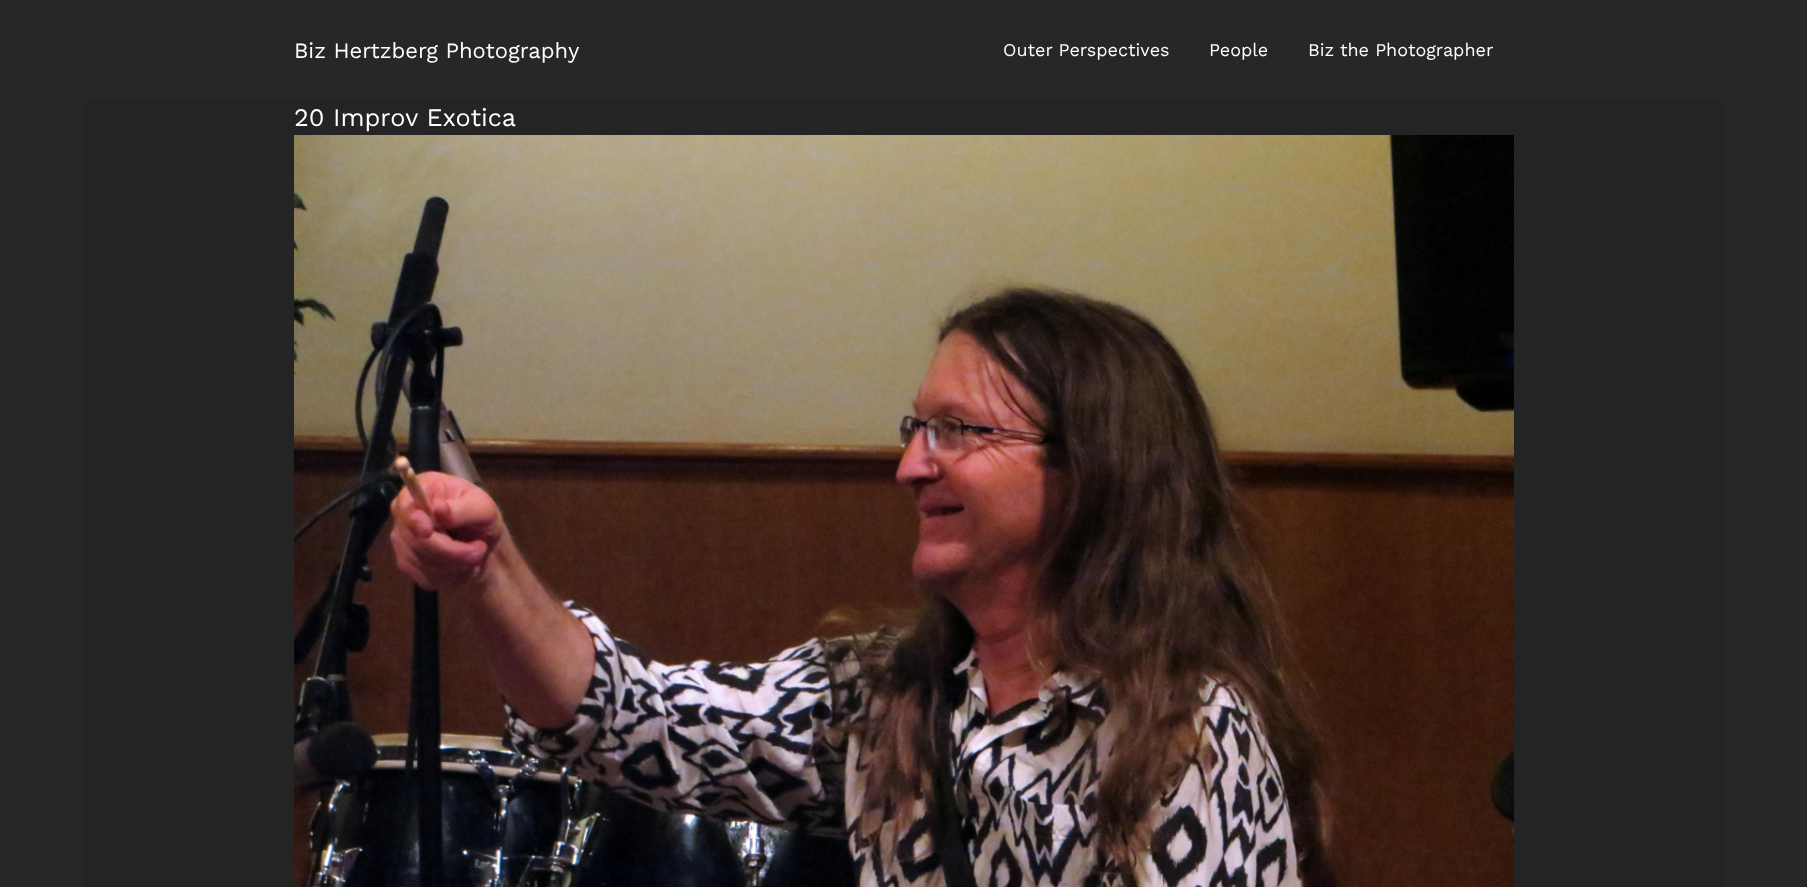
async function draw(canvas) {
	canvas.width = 1807;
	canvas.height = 887;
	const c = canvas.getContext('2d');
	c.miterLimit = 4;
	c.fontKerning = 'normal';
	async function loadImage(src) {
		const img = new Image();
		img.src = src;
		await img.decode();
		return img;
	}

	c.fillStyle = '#272727';
	c.fillRect(0, 0, 1807, 887);
	c.fillStyle = '#242424';
	c.fillRect(84, 100, 1640, 787);
	c.font = '22px Work Sans';
	c.fillStyle = '#fff';
	c.fillText('Biz Hertzberg Photography', 294, 58);
	c.font = '18px Work Sans';
	for (const [text, x, y] of [
		['Outer Perspectives', 1003, 56],
		['People', 1209, 56],
		['Biz the Photographer', 1308, 56],
	]) {
		c.fillText(text, x, y);
	}
	c.font = '25.25px Work Sans';
	c.fillText('20 Improv Exotica', 294, 126);
	c.drawImage(await loadImage('img1.png'), 294, 135, 1220, 752);
}

draw(document.querySelector('canvas'));
